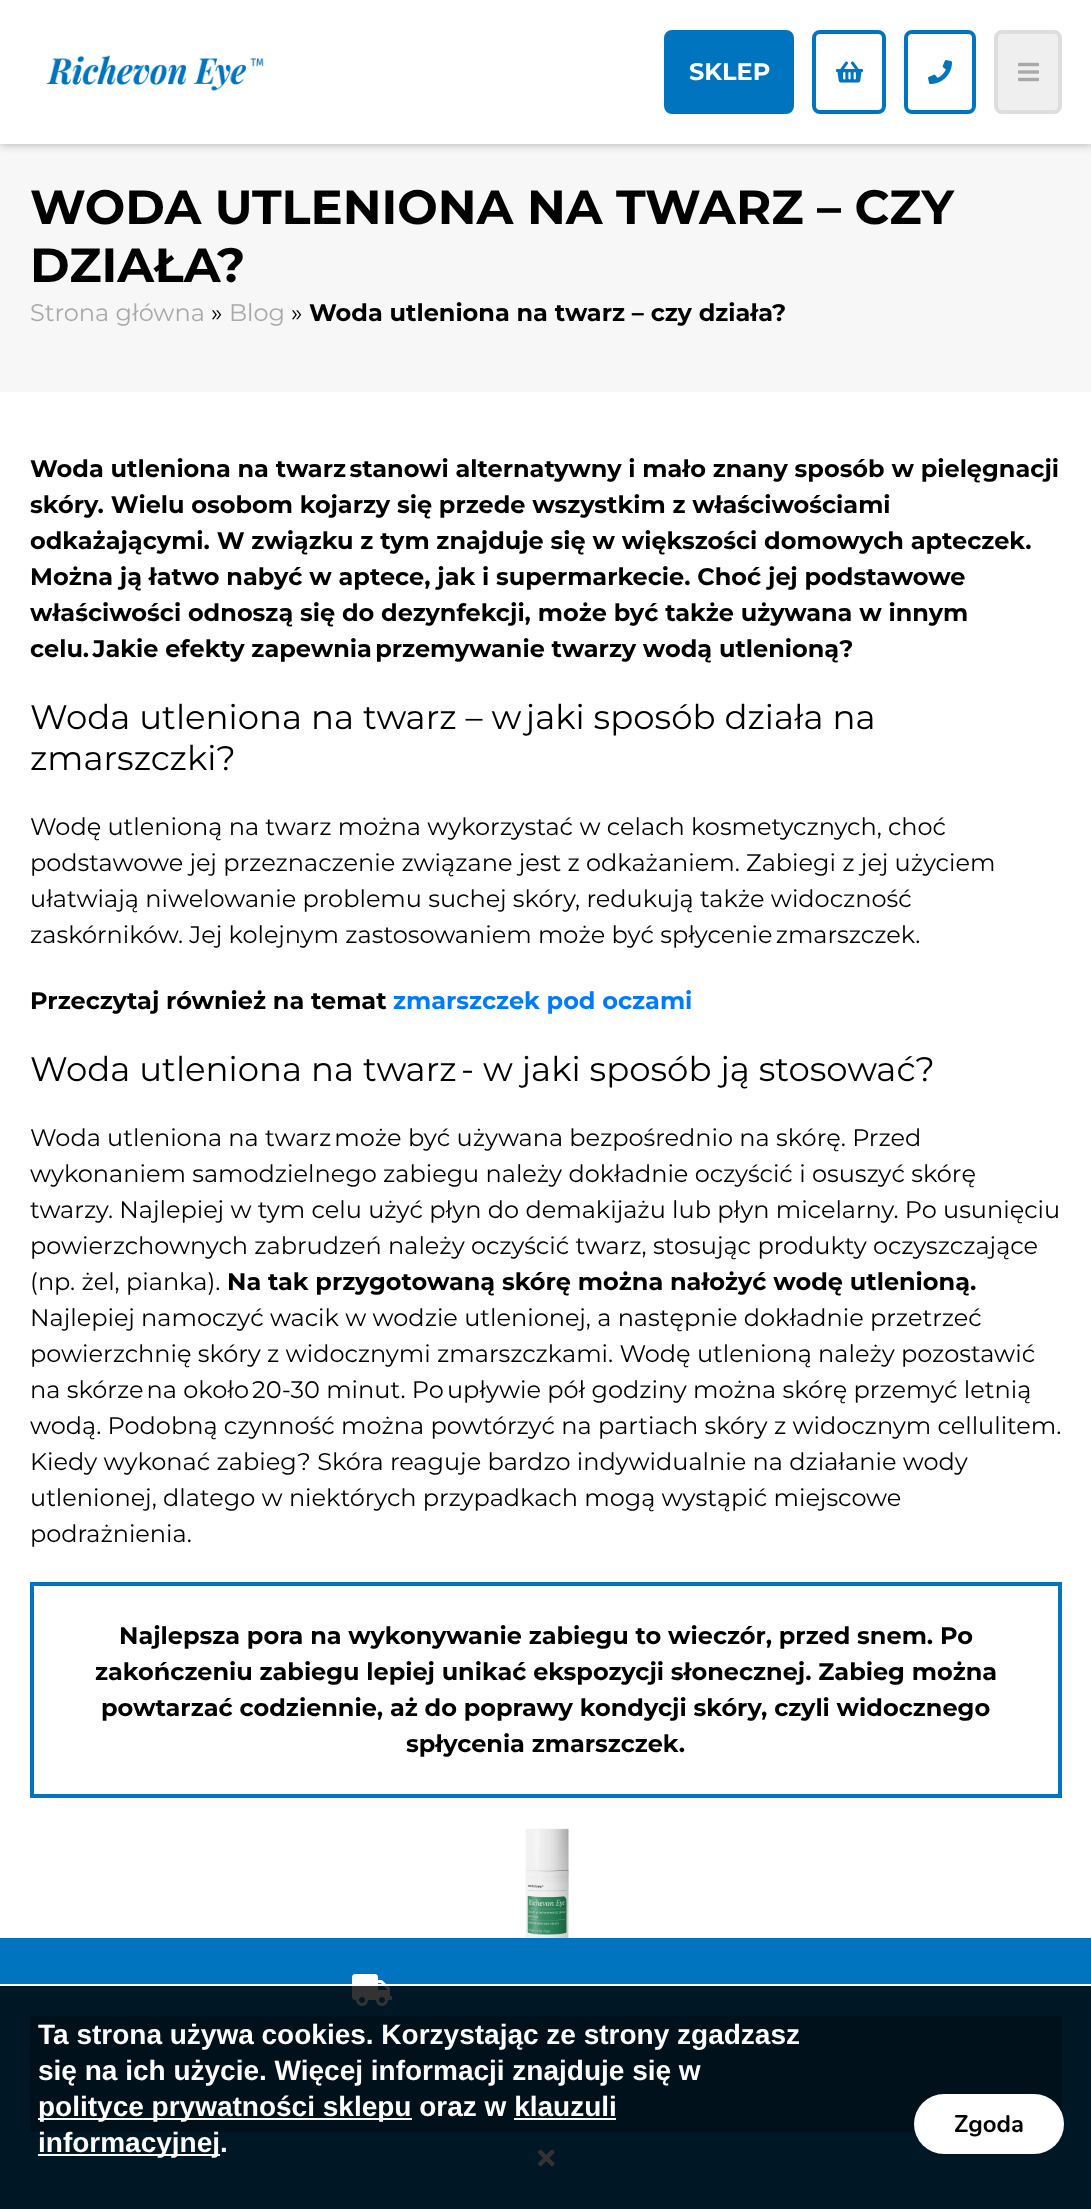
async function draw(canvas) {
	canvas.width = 1091;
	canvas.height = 2209;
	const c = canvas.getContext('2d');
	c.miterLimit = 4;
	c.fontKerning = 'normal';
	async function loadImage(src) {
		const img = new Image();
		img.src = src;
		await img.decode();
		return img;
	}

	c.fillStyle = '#fff';
	c.fillRect(0, 0, 1091, 2209);
	c.fillStyle = '#f7f7f7';
	c.fillRect(0, 144, 1091, 248);
	c.fillStyle = '#a9a9a9';
	c.filter = 'blur(5px)';
	c.beginPath();
	c.rect(0, 0, 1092, 144);
	c.fill();
	c.filter = 'none';
	c.fillStyle = '#fff';
	c.fillRect(0, 0, 1091, 144);
	c.drawImage(await loadImage('img1.png'), 46, 55, 218, 37);
	c.fillStyle = '#0074be';
	c.beginPath();
	c.roundRect(666, 32, 126, 80, 6);
	c.fill();
	c.strokeStyle = '#0074be';
	c.lineWidth = 4;
	c.stroke();
	c.font = 'bold 24px Montserrat';
	c.fillStyle = '#fff';
	c.fillText('SKLEP', 689, 80);
	c.beginPath();
	c.roundRect(814, 32, 70, 80, 6);
	c.stroke();
	c.drawImage(await loadImage('img2.png'), 836, 61, 27, 22);
	c.beginPath();
	c.roundRect(906, 32, 68, 80, 6);
	c.stroke();
	c.drawImage(await loadImage('img3.png'), 928, 60, 24, 24);
	c.fillStyle = '#efefef';
	c.beginPath();
	c.roundRect(996, 32, 64, 80, 6);
	c.fill();
	c.strokeStyle = '#ddd';
	c.stroke();
	c.drawImage(await loadImage('img4.png'), 1018, 62, 21, 20);
	c.font = 'bold 48px Montserrat';
	c.fillStyle = '#000';
	c.fillText('WODA UTLENIONA NA TWARZ – CZY', 30, 224);
	c.fillText('DZIAŁA?', 30, 282);
	c.font = '24px Montserrat';
	c.fillStyle = '#a9a9a9';
	c.fillText('Strona główna', 30, 321);
	c.fillStyle = '#000';
	c.fillText('»', 211, 321);
	c.fillStyle = '#a9a9a9';
	c.fillText('Blog', 229, 321);
	c.fillStyle = '#000';
	c.fillText('»', 291, 321);
	c.font = 'bold 24px Montserrat';
	for (const [text, x, y] of [
		['Woda utleniona na twarz – czy działa?', 309, 321],
		['Woda utleniona na twarz stanowi alternatywny i mało znany sposób w pielęgnacji', 30, 477],
		['skóry. Wielu osobom kojarzy się przede wszystkim z właściwościami', 30, 513],
		['odkażającymi. W związku z tym znajduje się w większości domowych apteczek.', 30, 549],
		['Można ją łatwo nabyć w aptece, jak i supermarkecie. Choć jej podstawowe', 30, 585],
		['właściwości odnoszą się do dezynfekcji, może być także używana w innym', 30, 621],
		['celu. Jakie efekty zapewnia przemywanie twarzy wodą utlenioną?', 30, 657],
	]) {
		c.fillText(text, x, y);
	}
	c.font = '34px Montserrat';
	c.fillText('Woda utleniona na twarz – w jaki sposób działa na', 30, 729);
	c.fillText('zmarszczki?', 30, 770);
	c.font = '24px Montserrat';
	for (const [text, x, y] of [
		['Wodę utlenioną na twarz można wykorzystać w celach kosmetycznych, choć', 30, 835],
		['podstawowe jej przeznaczenie związane jest z odkażaniem. Zabiegi z jej użyciem', 30, 871],
		['ułatwiają niwelowanie problemu suchej skóry, redukują także widoczność', 30, 907],
		['zaskórników. Jej kolejnym zastosowaniem może być spłycenie zmarszczek.', 30, 943],
	]) {
		c.fillText(text, x, y);
	}
	c.font = 'bold 24px Montserrat';
	c.fillText('Przeczytaj również na temat', 30, 1009);
	c.fillStyle = '#007bff';
	c.fillText('zmarszczek pod oczami', 393, 1009);
	c.font = '34px Montserrat';
	c.fillStyle = '#000';
	c.fillText('Woda utleniona na twarz - w jaki sposób ją stosować?', 30, 1081);
	c.font = '24px Montserrat';
	for (const [text, x, y] of [
		['Woda utleniona na twarz może być używana bezpośrednio na skórę. Przed', 30, 1146],
		['wykonaniem samodzielnego zabiegu należy dokładnie oczyścić i osuszyć skórę', 30, 1182],
		['twarzy. Najlepiej w tym celu użyć płyn do demakijażu lub płyn micelarny. Po usunięciu', 30, 1218],
		['powierzchownych zabrudzeń należy oczyścić twarz, stosując produkty oczyszczające', 30, 1254],
		['(np. żel, pianka).', 30, 1290],
	]) {
		c.fillText(text, x, y);
	}
	c.font = 'bold 24px Montserrat';
	c.fillText('Na tak przygotowaną skórę można nałożyć wodę utlenioną.', 227, 1290);
	c.font = '24px Montserrat';
	for (const [text, x, y] of [
		['Najlepiej namoczyć wacik w wodzie utlenionej, a następnie dokładnie przetrzeć', 30, 1326],
		['powierzchnię skóry z widocznymi zmarszczkami. Wodę utlenioną należy pozostawić', 30, 1362],
		['na skórze na około 20-30 minut. Po upływie pół godziny można skórę przemyć letnią', 30, 1398],
		['wodą. Podobną czynność można powtórzyć na partiach skóry z widocznym cellulitem.', 30, 1434],
		['Kiedy wykonać zabieg? Skóra reaguje bardzo indywidualnie na działanie wody', 30, 1470],
		['utlenionej, dlatego w niektórych przypadkach mogą wystąpić miejscowe', 30, 1506],
		['podrażnienia.', 30, 1542],
	]) {
		c.fillText(text, x, y);
	}
	c.strokeStyle = '#0074be';
	c.strokeRect(32, 1584, 1028, 212);
	c.font = 'bold 24px Montserrat';
	for (const [text, x, y] of [
		['Najlepsza pora na wykonywanie zabiegu to wieczór, przed snem. Po', 119, 1644],
		['zakończeniu zabiegu lepiej unikać ekspozycji słonecznej. Zabieg można', 95, 1680],
		['powtarzać codziennie, aż do poprawy kondycji skóry, czyli widocznego', 101, 1716],
		['spłycenia zmarszczek.', 406, 1752],
	]) {
		c.fillText(text, x, y);
	}
	c.drawImage(await loadImage('img5.png'), 525, 1828, 44, 110);
	c.fillStyle = '#0074be';
	c.fillRect(0, 1938, 1091, 271);
	c.drawImage(await loadImage('img6.png'), 352, 1974, 40, 32);
	c.fillStyle = '#00558a';
	c.fillRect(30, 2016, 1032, 116);
	c.drawImage(await loadImage('img7.png'), 538, 2149, 17, 18);
	c.fillStyle = '#000000cc';
	c.fillRect(0, 1986, 1091, 223);
	c.fillStyle = '#fff';
	c.fillRect(0, 1984, 1091, 2);
	c.font = 'bold 28px Liberation Sans';
	c.fillText('Ta strona używa cookies. Korzystając ze strony zgadzasz', 38, 2044);
	c.fillText('się na ich użycie. Więcej informacji znajduje się w', 38, 2080);
	c.fillRect(38, 2118, 374, 2);
	c.fillText('polityce prywatności sklepu oraz w klauzuli', 38, 2116);
	c.fillRect(38, 2154, 182, 2);
	c.fillText('informacyjnej.', 38, 2152);
	c.fillRect(514, 2118, 102, 2);
	c.beginPath();
	c.roundRect(914, 2094, 150, 60, 30);
	c.fill();
	c.font = 'bold 24px Nunito';
	c.fillStyle = '#000';
	c.fillText('Zgoda', 954, 2132);
}

draw(document.querySelector('canvas'));
